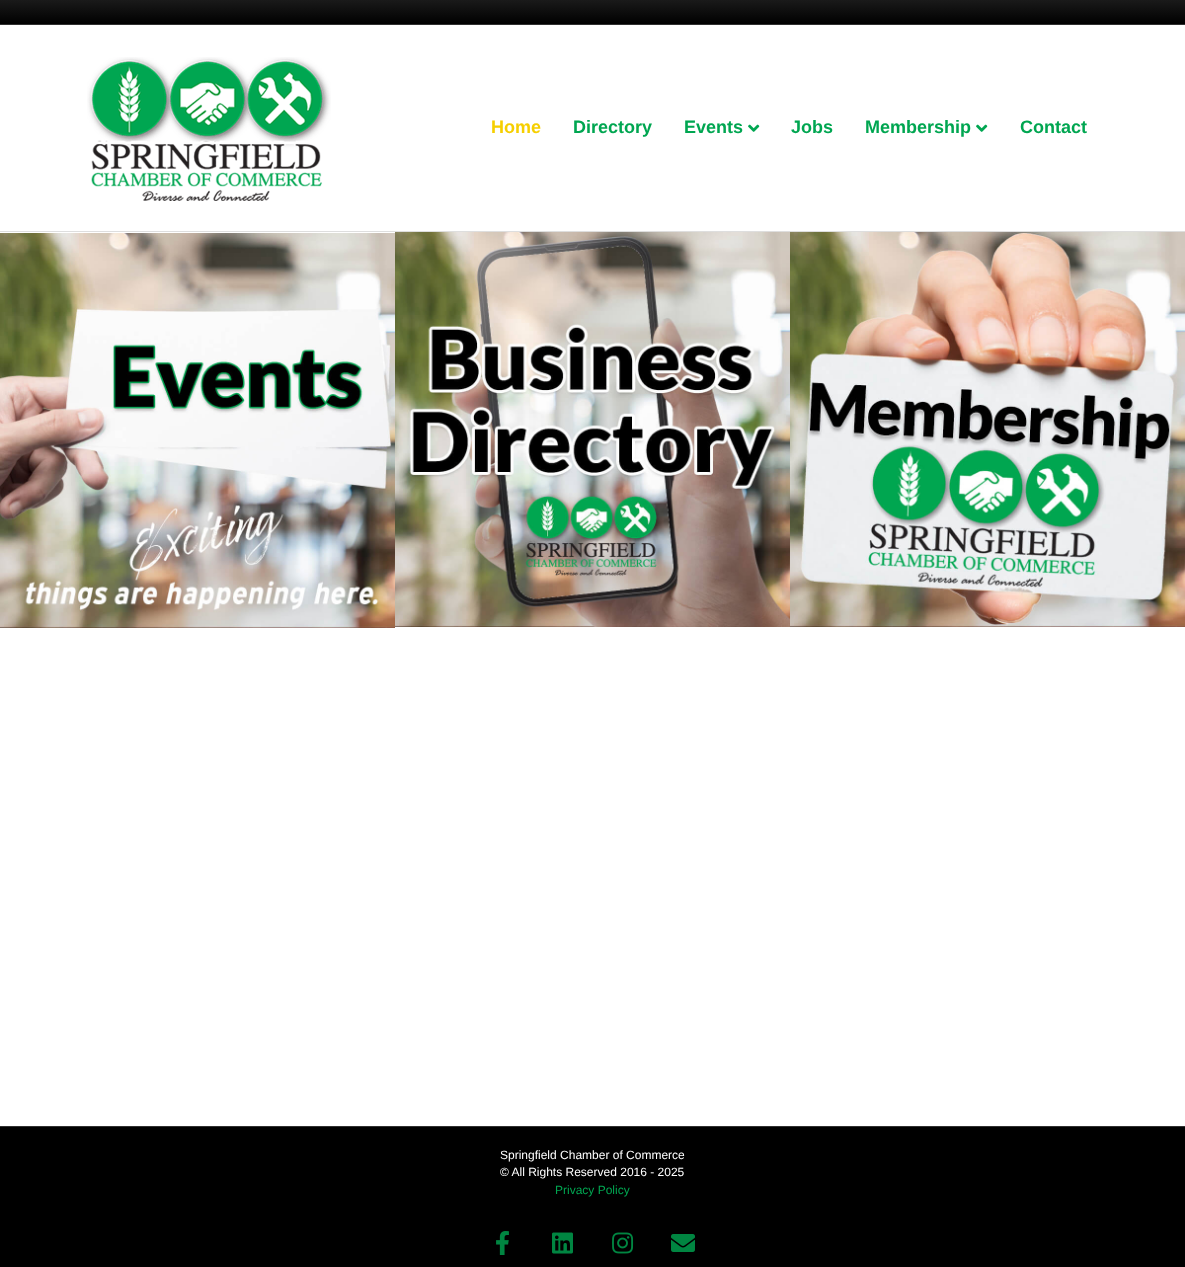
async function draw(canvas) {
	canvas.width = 1185;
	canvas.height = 1267;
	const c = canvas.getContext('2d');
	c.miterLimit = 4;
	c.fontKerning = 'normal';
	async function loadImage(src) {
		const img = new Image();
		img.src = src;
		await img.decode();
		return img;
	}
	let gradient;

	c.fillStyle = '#fff';
	c.fillRect(0, 0, 1185, 1267);
	gradient = c.createLinearGradient(593, 0, 593, 24);
	gradient.addColorStop(0, '#1a1a1a');
	gradient.addColorStop(1, '#000');
	c.fillStyle = gradient;
	c.fillRect(0, 0, 1185, 24);
	c.fillStyle = '#303030';
	c.fillRect(0, 24, 1185, 1);
	c.fillStyle = '#dedede';
	c.fillRect(0, 231, 1185, 1);
	c.drawImage(await loadImage('img1.png'), 87, 57, 244, 144);
	c.font = 'bold 18px Liberation Sans';
	c.fillStyle = '#f6cf00';
	c.fillText('Home', 491, 133);
	c.fillStyle = '#00a651';
	c.fillText('Directory', 573, 133);
	c.fillText('Events', 684, 133);
	c.drawImage(await loadImage('img2.png'), 748, 124, 12, 8);
	c.fillText('Jobs', 791, 133);
	c.fillText('Membership', 865, 133);
	c.drawImage(await loadImage('img2.png'), 976, 124, 12, 8);
	c.fillText('Contact', 1020, 133);
	c.drawImage(await loadImage('img3.png'), 0, 233, 395, 395);
	c.drawImage(await loadImage('img4.png'), 395, 232, 395, 395);
	c.drawImage(await loadImage('img5.png'), 790, 232, 395, 395);
	c.fillStyle = '#000';
	c.fillRect(0, 1127, 1185, 140);
	c.fillStyle = '#303030';
	c.fillRect(0, 1126, 1185, 1);
	c.font = '12px Liberation Sans';
	c.fillStyle = '#fff';
	c.fillText('Springfield Chamber of Commerce', 500, 1159);
	c.fillText('© All Rights Reserved 2016 - 2025', 500, 1176);
	c.fillStyle = '#00a651';
	c.fillText('Privacy Policy', 555, 1194);
	c.drawImage(await loadImage('img6.png'), 496, 1231, 13, 24);
	c.drawImage(await loadImage('img7.png'), 552, 1232, 21, 22);
	c.drawImage(await loadImage('img8.png'), 612, 1232, 22, 22);
	c.drawImage(await loadImage('img9.png'), 671, 1234, 24, 18);
}

draw(document.querySelector('canvas'));
